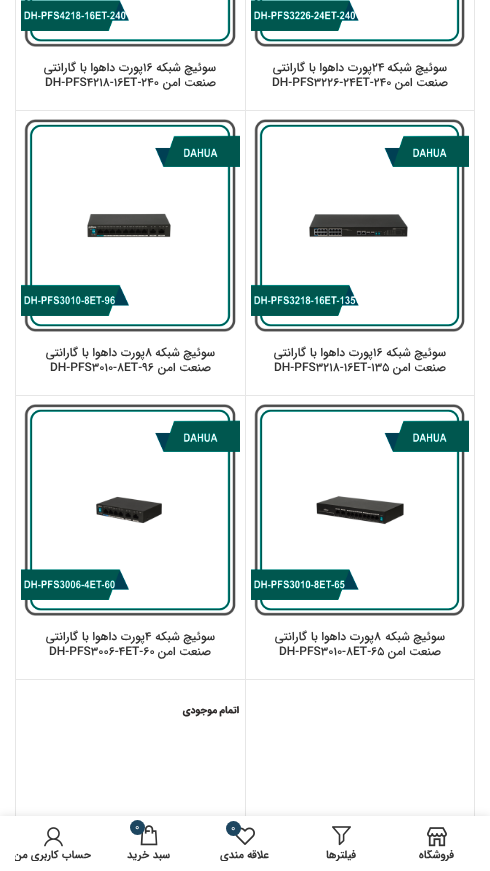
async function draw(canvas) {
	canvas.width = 490;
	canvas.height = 871;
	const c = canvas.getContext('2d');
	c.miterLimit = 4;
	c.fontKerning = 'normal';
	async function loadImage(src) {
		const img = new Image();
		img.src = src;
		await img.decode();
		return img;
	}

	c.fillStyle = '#fff';
	c.fillRect(0, 0, 490, 871);
	c.fillStyle = '#e6e6e6';
	c.fillRect(474, 0, 1, 816);
	c.beginPath();
	c.moveTo(474, 111);
	c.lineTo(245, 111);
	c.lineTo(246, 110);
	c.lineTo(474, 110);
	c.closePath();
	c.fill();
	c.fillStyle = '#81818133';
	c.beginPath();
	c.moveTo(245, 111);
	c.lineTo(245, -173);
	c.lineTo(246, -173);
	c.lineTo(246, 110);
	c.closePath();
	c.fill();
	c.drawImage(await loadImage('img1.png'), 251, 0, 214, 47);
	c.direction = 'rtl';
	c.font = '500 12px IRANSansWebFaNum';
	c.fillStyle = '#333';
	c.fillText('سوئیچ شبکه', 447, 71);
	c.direction = 'ltr';
	c.fillText('24', 372, 71);
	c.direction = 'rtl';
	c.fillText('پورت داهوا با گارانتی', 372, 71);
	c.fillText('صنعت امن', 448, 86);
	c.direction = 'ltr';
	c.fillText('DH-PFS3226-24ET-240', 272, 86);
	c.fillStyle = '#e6e6e6';
	c.beginPath();
	c.moveTo(245, 111);
	c.lineTo(15, 111);
	c.lineTo(16, 110);
	c.lineTo(245, 110);
	c.closePath();
	c.fill();
	c.fillStyle = '#81818133';
	c.beginPath();
	c.moveTo(15, 111);
	c.lineTo(15, -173);
	c.lineTo(16, -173);
	c.lineTo(16, 110);
	c.closePath();
	c.fill();
	c.drawImage(await loadImage('img2.png'), 21, 0, 215, 47);
	c.direction = 'rtl';
	c.fillStyle = '#333';
	c.fillText('سوئیچ شبکه', 216, 71);
	c.direction = 'ltr';
	c.fillText('16', 143, 71);
	c.direction = 'rtl';
	c.fillText('پورت داهوا با گارانتی', 143, 71);
	c.fillText('صنعت امن', 216, 86);
	c.direction = 'ltr';
	c.fillText('DH-PFS4218-16ET-240', 45, 86);
	c.fillStyle = '#e6e6e6';
	c.beginPath();
	c.moveTo(474, 396);
	c.lineTo(245, 396);
	c.lineTo(246, 395);
	c.lineTo(474, 395);
	c.closePath();
	c.fill();
	c.fillStyle = '#81818133';
	c.beginPath();
	c.moveTo(245, 396);
	c.lineTo(245, 111);
	c.lineTo(246, 111);
	c.lineTo(246, 395);
	c.closePath();
	c.fill();
	c.drawImage(await loadImage('img3.png'), 251, 119, 218, 213);
	c.direction = 'rtl';
	c.fillStyle = '#333';
	c.fillText('سوئیچ شبکه', 446, 356);
	c.direction = 'ltr';
	c.fillText('16', 373, 356);
	c.direction = 'rtl';
	c.fillText('پورت داهوا با گارانتی', 373, 356);
	c.fillText('صنعت امن', 446, 371);
	c.direction = 'ltr';
	c.fillText('DH-PFS3218-16ET-135', 274, 371);
	c.fillStyle = '#e6e6e6';
	c.beginPath();
	c.moveTo(245, 396);
	c.lineTo(15, 396);
	c.lineTo(16, 395);
	c.lineTo(245, 395);
	c.closePath();
	c.fill();
	c.fillStyle = '#81818133';
	c.beginPath();
	c.moveTo(15, 396);
	c.lineTo(15, 111);
	c.lineTo(16, 111);
	c.lineTo(16, 395);
	c.closePath();
	c.fill();
	c.drawImage(await loadImage('img4.png'), 21, 119, 219, 213);
	c.direction = 'rtl';
	c.fillStyle = '#333';
	c.fillText('سوئیچ شبکه', 215, 356);
	c.direction = 'ltr';
	c.fillText('8', 145, 356);
	c.direction = 'rtl';
	c.fillText('پورت داهوا با گارانتی', 145, 356);
	c.fillText('صنعت امن', 211, 371);
	c.direction = 'ltr';
	c.fillText('DH-PFS3010-8ET-96', 50, 371);
	c.fillStyle = '#e6e6e6';
	c.beginPath();
	c.moveTo(474, 680);
	c.lineTo(245, 680);
	c.lineTo(246, 679);
	c.lineTo(474, 679);
	c.closePath();
	c.fill();
	c.fillStyle = '#81818133';
	c.beginPath();
	c.moveTo(245, 680);
	c.lineTo(245, 396);
	c.lineTo(246, 396);
	c.lineTo(246, 679);
	c.closePath();
	c.fill();
	c.drawImage(await loadImage('img5.png'), 251, 404, 218, 212);
	c.direction = 'rtl';
	c.fillStyle = '#333';
	c.fillText('سوئیچ شبکه', 445, 640);
	c.direction = 'ltr';
	c.fillText('8', 374, 640);
	c.direction = 'rtl';
	c.fillText('پورت داهوا با گارانتی', 374, 640);
	c.fillText('صنعت امن', 441, 655);
	c.direction = 'ltr';
	c.fillText('DH-PFS3010-8ET-65', 279, 655);
	c.fillStyle = '#e6e6e6';
	c.beginPath();
	c.moveTo(245, 680);
	c.lineTo(15, 680);
	c.lineTo(16, 679);
	c.lineTo(245, 679);
	c.closePath();
	c.fill();
	c.fillStyle = '#81818133';
	c.beginPath();
	c.moveTo(15, 680);
	c.lineTo(15, 396);
	c.lineTo(16, 396);
	c.lineTo(16, 679);
	c.closePath();
	c.fill();
	c.drawImage(await loadImage('img6.png'), 21, 404, 219, 212);
	c.direction = 'rtl';
	c.fillStyle = '#333';
	c.fillText('سوئیچ شبکه', 215, 640);
	c.direction = 'ltr';
	c.fillText('4', 145, 640);
	c.direction = 'rtl';
	c.fillText('پورت داهوا با گارانتی', 145, 640);
	c.fillText('صنعت امن', 211, 655);
	c.direction = 'ltr';
	c.fillText('DH-PFS3006-4ET-60', 49, 655);
	c.fillStyle = '#e6e6e6';
	c.beginPath();
	c.moveTo(245, 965);
	c.lineTo(245, 680);
	c.lineTo(246, 680);
	c.lineTo(246, 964);
	c.closePath();
	c.fill();
	c.beginPath();
	c.moveTo(15, 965);
	c.lineTo(15, 680);
	c.lineTo(16, 680);
	c.lineTo(16, 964);
	c.closePath();
	c.fill();
	c.letterSpacing = '0.4px';
	c.wordSpacing = '-1px';
	c.direction = 'rtl';
	c.font = '900 10px IRANSansWebFaNum';
	c.fillStyle = '#2d2a2a';
	c.fillText('اتمام موجودی', 239, 713);
	c.fillStyle = '#0000001f';
	c.filter = 'blur(4.5px)';
	c.beginPath();
	c.rect(0, 816, 490, 55);
	c.fill();
	c.filter = 'none';
	c.fillStyle = '#fff';
	c.fillRect(0, 816, 490, 55);
	c.drawImage(await loadImage('img7.png'), 427, 827, 20, 20);
	c.save();
	c.beginPath();
	c.rect(399, 850, 76, 11);
	c.clip();
	c.letterSpacing = '0px';
	c.wordSpacing = '0px';
	c.font = 'bold 11px IRANSansWebFaNum';
	c.fillStyle = '#333';
	c.fillText('فروشگاه', 454, 858);
	c.restore();
	c.drawImage(await loadImage('img8.png'), 332, 826, 19, 20);
	c.save();
	c.beginPath();
	c.rect(303, 850, 76, 11);
	c.clip();
	c.letterSpacing = '0px';
	c.wordSpacing = '0px';
	c.font = 'bold 11px IRANSansWebFaNum';
	c.fillStyle = '#333';
	c.fillText('فیلترها', 356, 858);
	c.restore();
	c.drawImage(await loadImage('img9.png'), 235, 827, 20, 18);
	c.fillStyle = '#1d4660';
	c.beginPath();
	c.arc(233.5, 828.5, 7.5, 0, 2 * Math.PI);
	c.fill();
	c.letterSpacing = '0px';
	c.wordSpacing = '0px';
	c.direction = 'ltr';
	c.font = '10px IRANSansWebFaNum';
	c.fillStyle = '#fff';
	c.fillText('0', 231, 831);
	c.save();
	c.beginPath();
	c.rect(207, 850, 76, 11);
	c.clip();
	c.direction = 'rtl';
	c.font = 'bold 11px IRANSansWebFaNum';
	c.fillStyle = '#333';
	c.fillText('علاقه مندی', 269, 858);
	c.restore();
	c.drawImage(await loadImage('img10.png'), 140, 825, 18, 21);
	c.fillStyle = '#1d4660';
	c.beginPath();
	c.arc(137.5, 827.5, 7.5, 0, 2 * Math.PI);
	c.fill();
	c.fillStyle = '#fff';
	c.fillText('0', 135, 830);
	c.save();
	c.beginPath();
	c.rect(111, 850, 76, 11);
	c.clip();
	c.direction = 'rtl';
	c.font = 'bold 11px IRANSansWebFaNum';
	c.fillStyle = '#333';
	c.fillText('سبد خرید', 170, 858);
	c.restore();
	c.drawImage(await loadImage('img11.png'), 44, 827, 19, 20);
	c.save();
	c.beginPath();
	c.rect(15, 850, 76, 11);
	c.clip();
	c.direction = 'rtl';
	c.font = 'bold 11px IRANSansWebFaNum';
	c.fillStyle = '#333';
	c.fillText('حساب کاربری من', 91, 858);
	c.restore();
}

draw(document.querySelector('canvas'));
